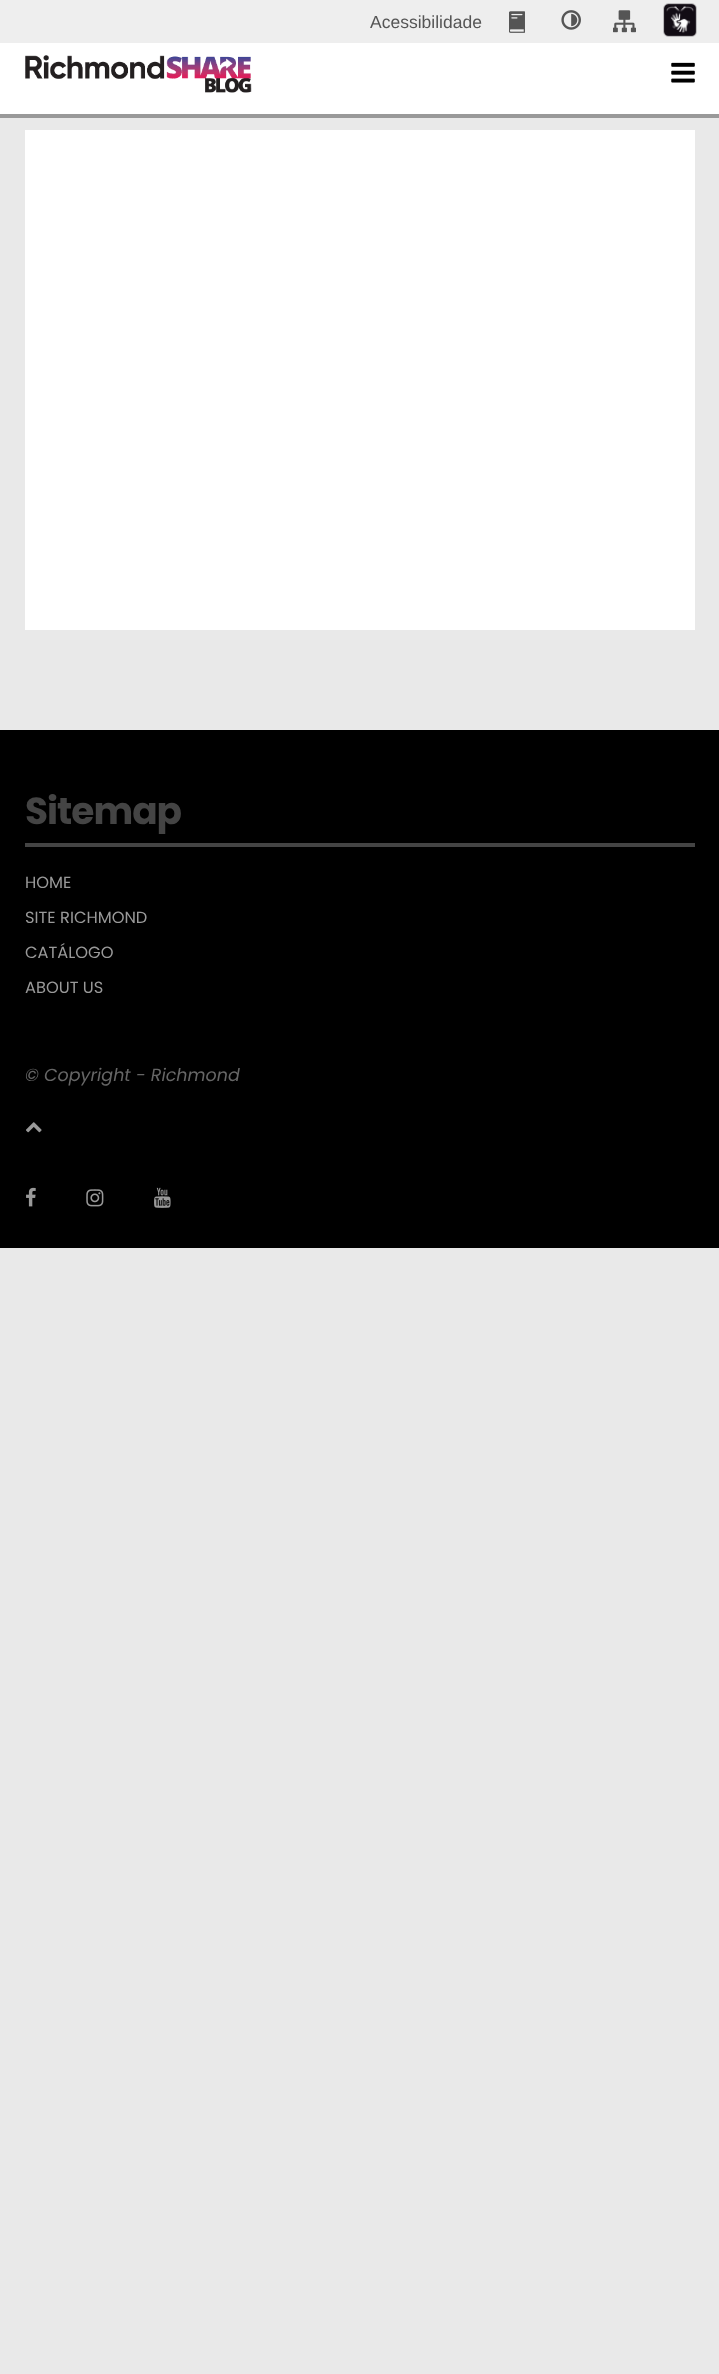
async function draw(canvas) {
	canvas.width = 719;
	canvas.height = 2374;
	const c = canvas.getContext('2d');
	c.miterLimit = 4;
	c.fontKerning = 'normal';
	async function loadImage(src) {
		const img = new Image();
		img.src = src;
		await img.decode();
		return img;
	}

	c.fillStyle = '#e9e9e9';
	c.fillRect(0, 0, 719, 2374);
	c.fillStyle = '#eee';
	c.fillRect(0, 0, 719, 43);
	c.font = '17.5px Liberation Sans';
	c.fillStyle = '#555';
	c.fillText('Acessibilidade', 370, 28);
	c.drawImage(await loadImage('img1.png'), 509, 11, 16, 22);
	c.drawImage(await loadImage('img2.png'), 561, 10, 20, 20);
	c.drawImage(await loadImage('img3.png'), 613, 10, 23, 23);
	c.drawImage(await loadImage('img4.png'), 663, 3, 34, 34);
	c.fillStyle = '#fff';
	c.fillRect(0, 43, 719, 71);
	c.fillStyle = '#999';
	c.fillRect(0, 114, 719, 4);
	c.drawImage(await loadImage('img5.png'), 25, 55, 227, 38);
	c.drawImage(await loadImage('img6.png'), 671, 62, 24, 21);
	for (const [x, y, w, h, color] of [
		[25, 130, 670, 500, '#fff'],
		[0, 730, 719, 518, '#000'],
		[25, 843, 670, 4, '#444'],
	]) {
		c.fillStyle = color;
		c.fillRect(x, y, w, h);
	}
	c.letterSpacing = '-1px';
	c.font = 'bold 37.5px Poppins';
	c.fillText('Sitemap', 25, 824);
	c.letterSpacing = '0px';
	c.font = '16.25px Poppins';
	c.fillStyle = '#999';
	for (const [text, x, y] of [
		['HOME', 25, 888],
		['SITE RICHMOND', 25, 923],
		['CATÁLOGO', 25, 958],
		['ABOUT US', 25, 993],
	]) {
		c.fillText(text, x, y);
	}
	c.font = 'italic 17.5px Poppins';
	c.fillStyle = '#666';
	c.fillText('© Copyright - Richmond', 25, 1081);
	c.drawImage(await loadImage('img7.png'), 26, 1122, 16, 11);
	c.drawImage(await loadImage('img8.png'), 26, 1187, 10, 20);
	c.drawImage(await loadImage('img9.png'), 86, 1189, 18, 18);
	c.drawImage(await loadImage('img10.png'), 154, 1187, 17, 21);
}

draw(document.querySelector('canvas'));
